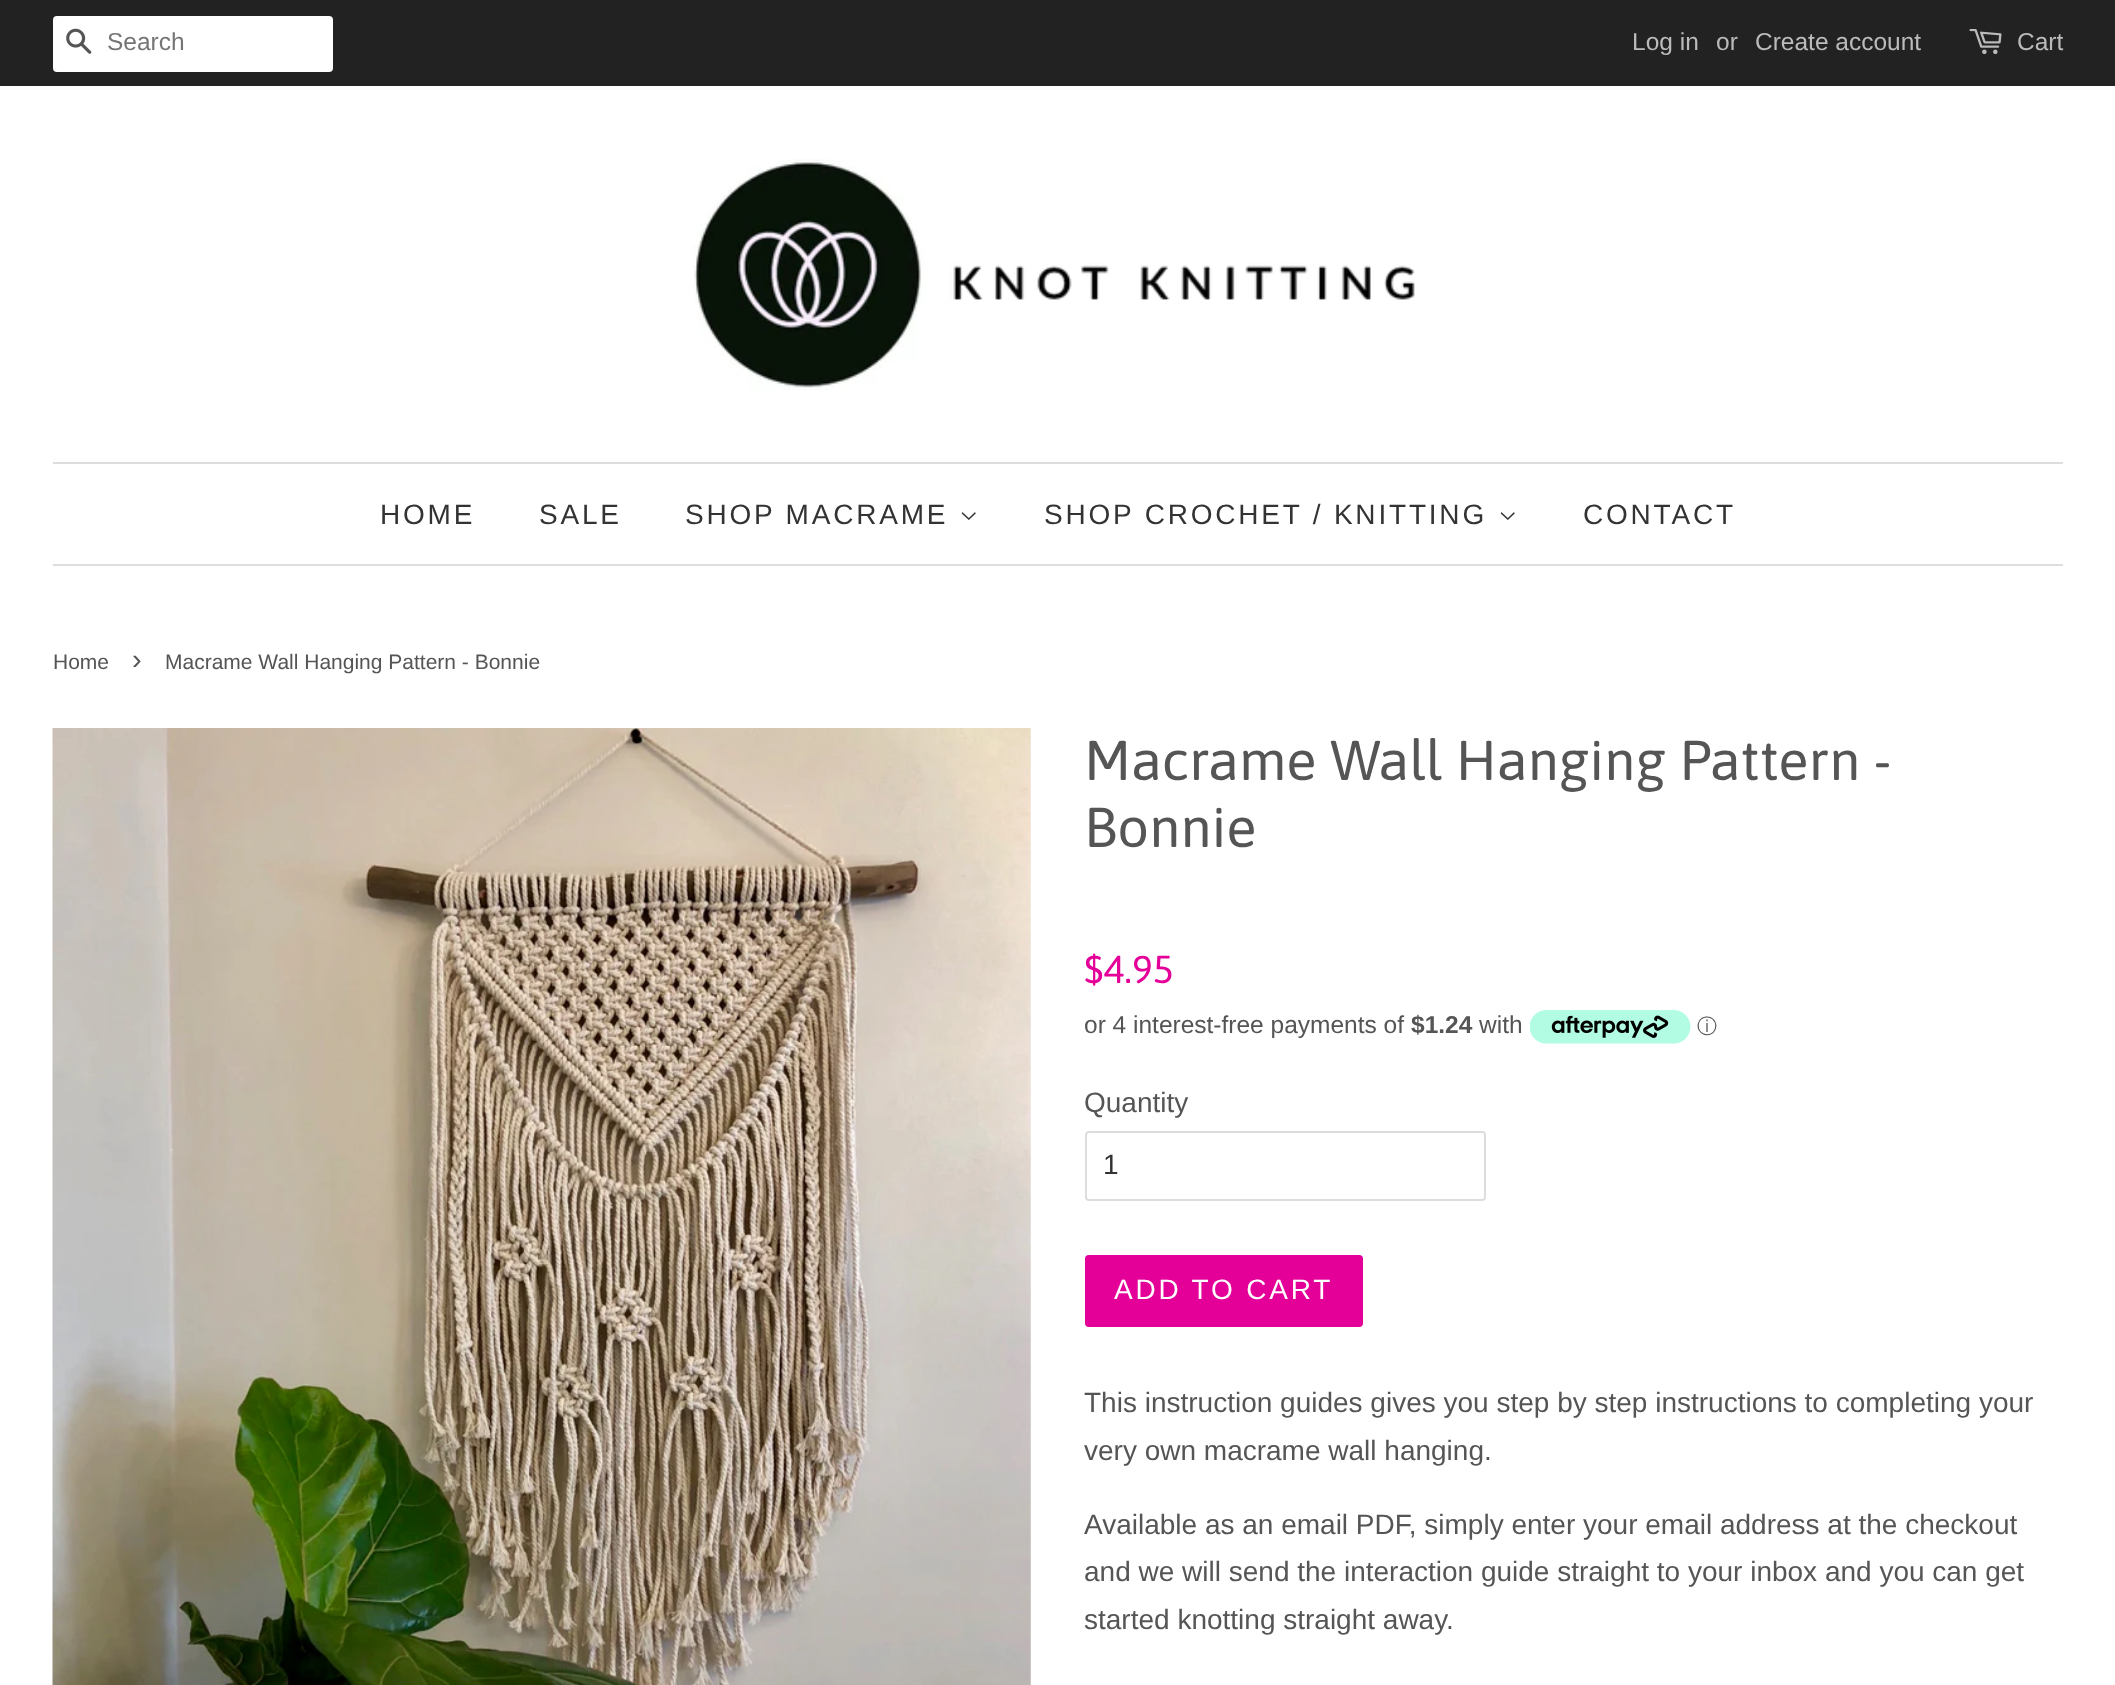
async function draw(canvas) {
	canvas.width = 2115;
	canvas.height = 1685;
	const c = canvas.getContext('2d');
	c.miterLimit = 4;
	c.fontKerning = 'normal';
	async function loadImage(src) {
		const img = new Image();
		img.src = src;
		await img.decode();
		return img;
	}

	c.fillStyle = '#fff';
	c.fillRect(0, 0, 2115, 1685);
	c.fillStyle = '#222';
	c.fillRect(0, 0, 2115, 86);
	c.fillStyle = '#fff';
	c.beginPath();
	c.roundRect(53, 16, 280, 56, 4);
	c.fill();
	c.drawImage(await loadImage('img1.png'), 66, 28, 26, 26);
	c.font = '24.5px Liberation Sans';
	c.fillStyle = '#757575';
	c.fillText('Search', 107, 50);
	c.fillStyle = '#bbb';
	for (const [text, x, y] of [
		['Log in', 1632, 50],
		['or', 1716, 50],
		['Create account', 1755, 50],
	]) {
		c.fillText(text, x, y);
	}
	c.drawImage(await loadImage('img2.png'), 1969, 29, 33, 26);
	c.fillText('Cart', 2017, 50);
	c.drawImage(await loadImage('img3.png'), 693, 159, 722, 231);
	c.fillStyle = '#ddd';
	c.fillRect(53, 462, 2010, 2);
	c.fillRect(53, 564, 2010, 2);
	c.letterSpacing = '2.8px';
	c.font = '28px Liberation Sans';
	c.fillStyle = '#333';
	for (const [text, x, y] of [
		['HOME', 380, 524],
		['SALE', 539, 524],
		['SHOP MACRAME', 685, 524],
	]) {
		c.fillText(text, x, y);
	}
	c.drawImage(await loadImage('img4.png'), 961, 512, 15, 8);
	c.fillText('SHOP CROCHET / KNITTING', 1044, 524);
	c.drawImage(await loadImage('img4.png'), 1500, 512, 15, 8);
	c.fillText('CONTACT', 1583, 524);
	c.letterSpacing = '0px';
	c.font = '21px Liberation Sans';
	c.fillStyle = '#555';
	c.fillText('Home', 53, 669);
	c.font = '29px Liberation Sans';
	c.fillText('›', 132, 669);
	c.font = '21px Liberation Sans';
	c.fillText('Macrame Wall Hanging Pattern - Bonnie', 165, 669);
	c.drawImage(await loadImage('img5.png'), 52, 728, 979, 957);
	c.font = '56px Asap';
	c.fillText('Macrame Wall Hanging Pattern -', 1084, 780);
	c.fillText('Bonnie', 1084, 847);
	c.font = '39px Asap';
	c.fillStyle = '#e40098';
	c.fillText('$4.95', 1084, 983);
	c.font = '24.5px Liberation Sans';
	c.fillStyle = '#555';
	c.fillText('or 4 interest-free payments of', 1084, 1033);
	c.font = 'bold 24.5px Liberation Sans';
	c.fillText('$1.24', 1411, 1033);
	c.font = '24.5px Liberation Sans';
	c.fillText('with', 1479, 1033);
	c.drawImage(await loadImage('img6.png'), 1530, 1010, 161, 34);
	c.font = '500 20px WenQuanYi Zen Hei';
	c.fillText('ⓘ', 1697, 1033);
	c.font = '28px Liberation Sans';
	c.fillText('Quantity', 1084, 1112);
	c.beginPath();
	c.roundRect(1086, 1132, 399, 68, 3);
	c.strokeStyle = '#ddd';
	c.lineWidth = 2;
	c.stroke();
	c.fillStyle = '#333';
	c.fillText('1', 1103, 1174);
	c.fillStyle = '#e40098';
	c.beginPath();
	c.roundRect(1085, 1255, 278, 72, 4);
	c.fill();
	c.letterSpacing = '2.8px';
	c.fillStyle = '#fff';
	c.fillText('ADD TO CART', 1114, 1299);
	c.letterSpacing = '0px';
	c.fillStyle = '#555';
	for (const [text, x, y] of [
		['This instruction guides gives you step by step instructions to completing your', 1084, 1412],
		['very own macrame wall hanging.', 1084, 1460],
		['Available as an email PDF, simply enter your email address at the checkout', 1084, 1534],
		['and we will send the interaction guide straight to your inbox and you can get', 1084, 1581],
		['started knotting straight away.', 1084, 1629],
	]) {
		c.fillText(text, x, y);
	}
}

draw(document.querySelector('canvas'));
